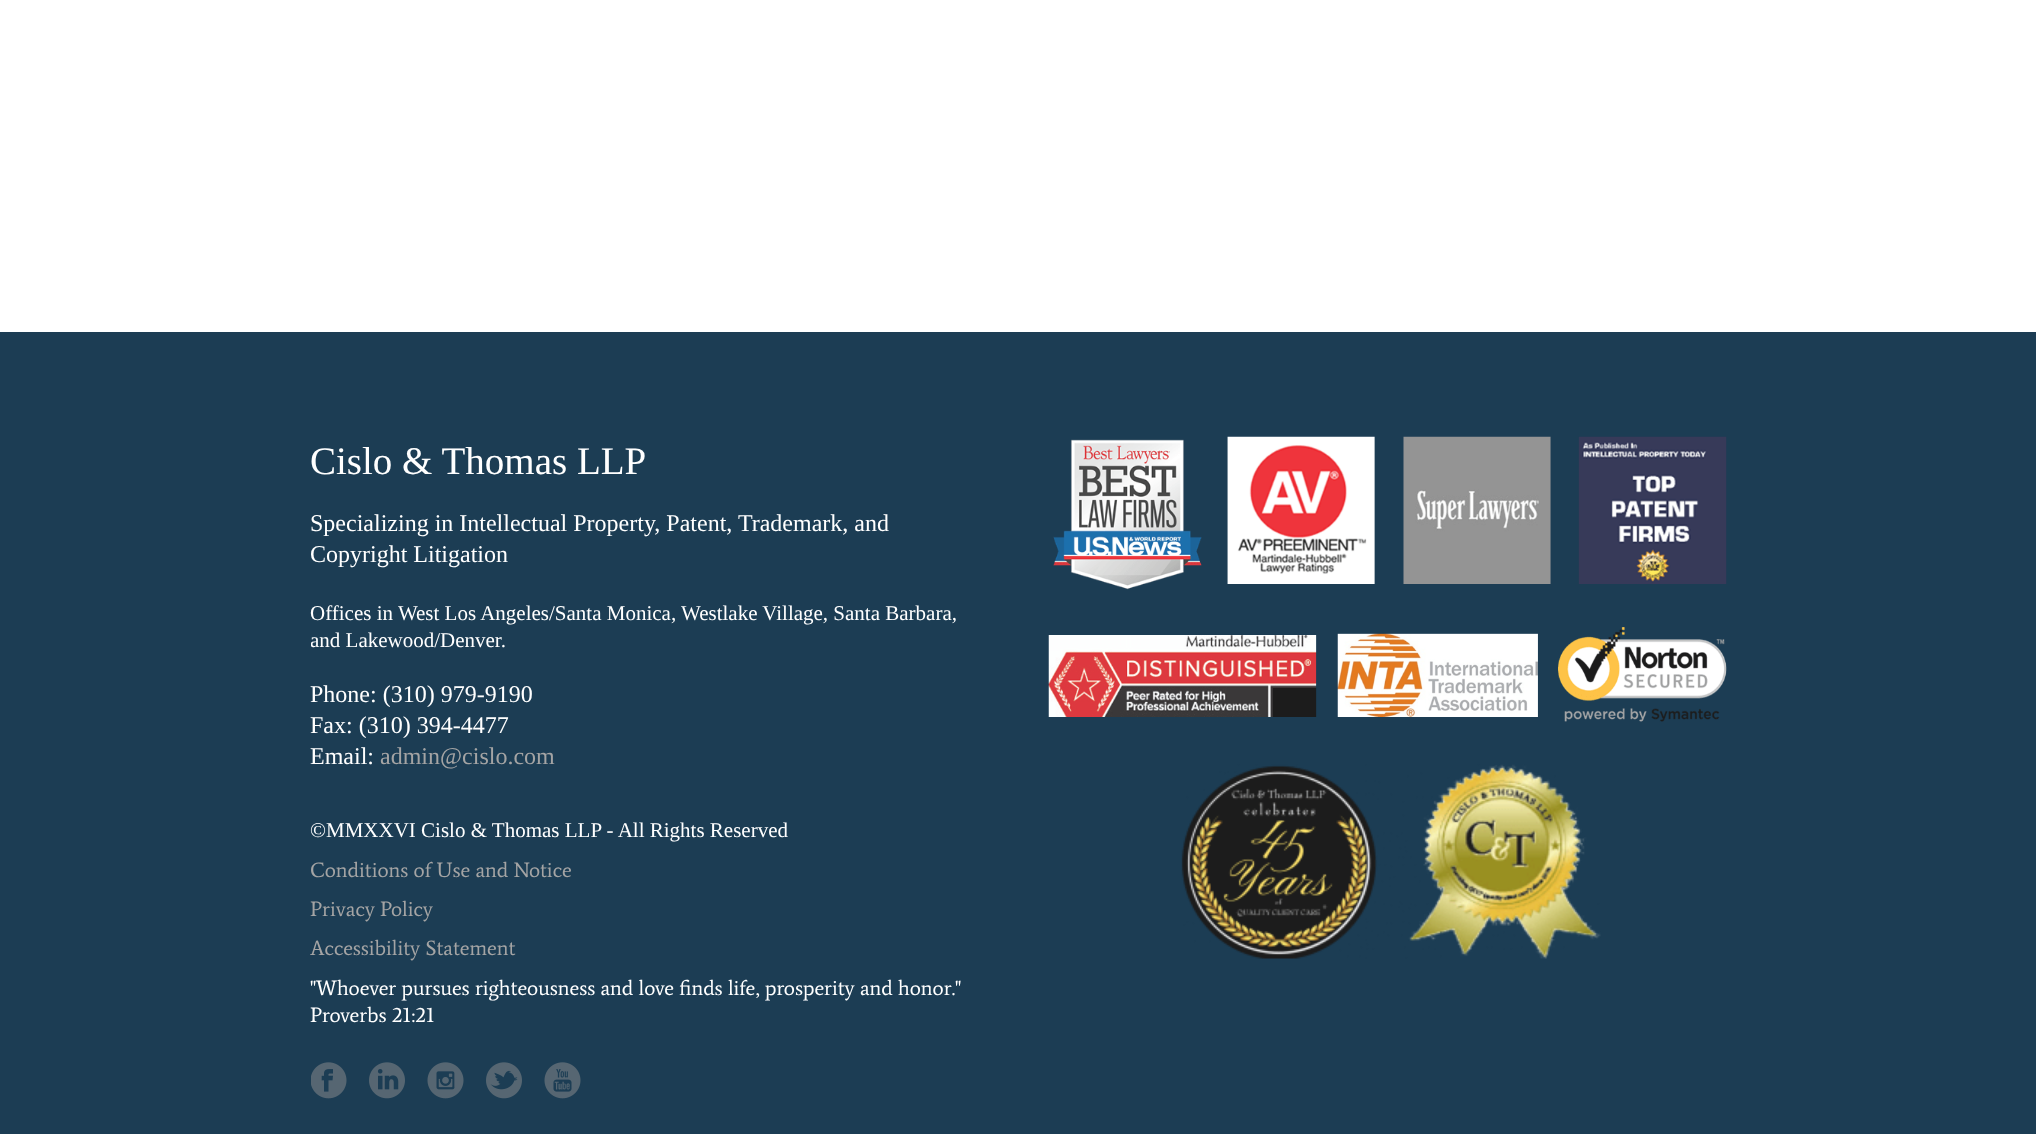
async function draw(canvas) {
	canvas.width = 2036;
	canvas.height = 1134;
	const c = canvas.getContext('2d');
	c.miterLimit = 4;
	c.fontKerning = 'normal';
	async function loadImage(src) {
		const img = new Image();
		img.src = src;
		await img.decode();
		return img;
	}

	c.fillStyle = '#fff';
	c.fillRect(0, 0, 2036, 1134);
	c.fillStyle = '#1c3d54';
	c.fillRect(0, 332, 2036, 802);
	c.font = '39px Liberation Serif';
	c.fillStyle = '#fff';
	c.fillText('Cislo & Thomas LLP', 310, 474);
	c.font = '24px Liberation Serif';
	c.fillText('Specializing in Intellectual Property, Patent, Trademark, and', 310, 531);
	c.fillText('Copyright Litigation', 310, 562);
	c.font = '21px Liberation Serif';
	c.fillText('Offices in West Los Angeles/Santa Monica, Westlake Village, Santa Barbara,', 310, 620);
	c.save();
	c.beginPath();
	c.rect(311, 437, 678, 366);
	c.clip();
	c.fillText('and Lakewood/Denver.', 310, 647);
	c.restore();
	c.font = '24px Liberation Serif';
	for (const [text, x, y] of [
		['Phone: (310) 979-9190', 310, 702],
		['Fax: (310) 394-4477', 310, 733],
		['Email:', 310, 764],
	]) {
		c.fillText(text, x, y);
	}
	c.fillStyle = '#a4a4a4';
	c.fillText('admin@cislo.com', 380, 764);
	c.font = '21px Liberation Serif';
	c.fillStyle = '#fff';
	c.fillText('©MMXXVI Cislo & Thomas LLP - All Rights Reserved', 310, 837);
	c.font = '21px Average';
	c.fillStyle = '#a4a4a4';
	for (const [text, x, y] of [
		['Conditions of Use and Notice', 310, 877],
		['Privacy Policy', 310, 916],
		['Accessibility Statement', 310, 955],
	]) {
		c.fillText(text, x, y);
	}
	c.fillStyle = '#fff';
	c.fillText('"Whoever pursues righteousness and love finds life, prosperity and honor."', 310, 995);
	c.fillText('Proverbs 21:21', 310, 1022);
	c.drawImage(await loadImage('img1.png'), 311, 1062, 36, 37);
	c.drawImage(await loadImage('img2.png'), 369, 1062, 36, 37);
	c.drawImage(await loadImage('img3.png'), 427, 1062, 37, 37);
	c.drawImage(await loadImage('img4.png'), 486, 1062, 36, 37);
	c.drawImage(await loadImage('img5.png'), 544, 1062, 37, 37);
	c.drawImage(await loadImage('img6.png'), 1053, 436, 674, 154);
	c.drawImage(await loadImage('img7.png'), 1048, 627, 679, 95);
	c.drawImage(await loadImage('img8.png'), 1181, 764, 420, 195);
}

draw(document.querySelector('canvas'));
